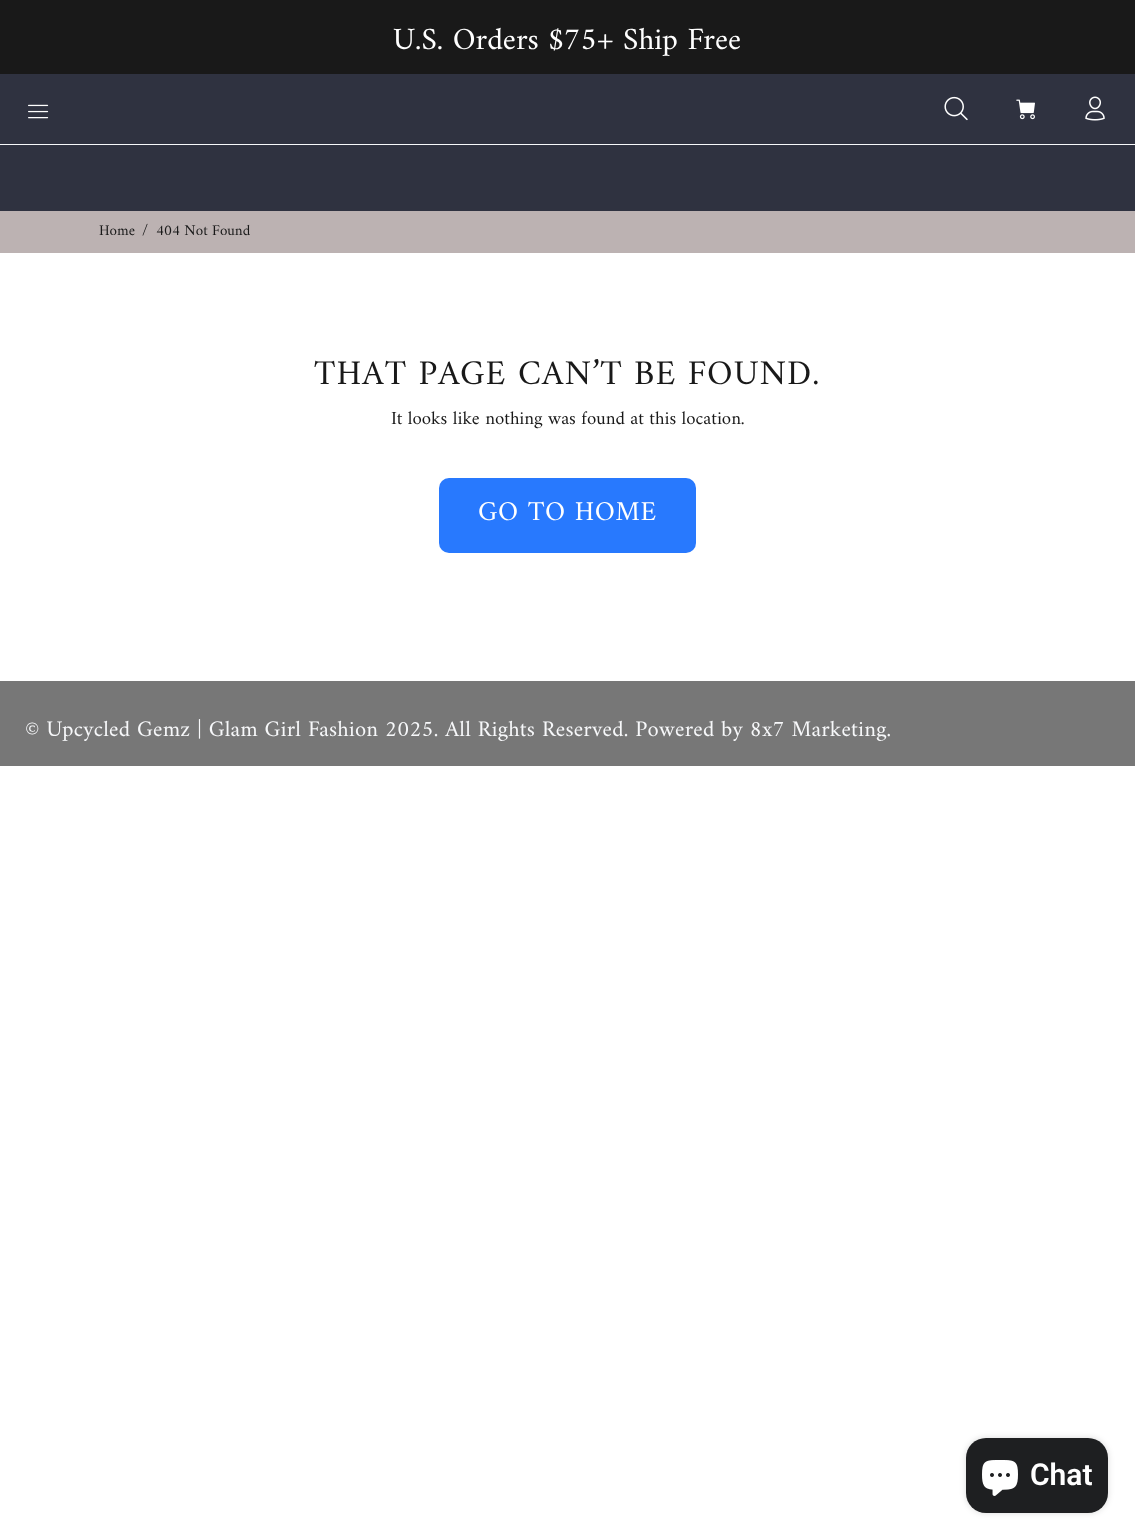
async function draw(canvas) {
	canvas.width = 1135;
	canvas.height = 1538;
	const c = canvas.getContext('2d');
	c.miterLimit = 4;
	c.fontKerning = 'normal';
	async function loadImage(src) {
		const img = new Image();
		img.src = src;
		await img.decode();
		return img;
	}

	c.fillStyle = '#fff';
	c.fillRect(0, 0, 1135, 1538);
	c.fillStyle = '#2f3240';
	c.fillRect(0, 74, 1135, 137);
	c.fillStyle = '#191919';
	c.fillRect(0, 0, 1135, 74);
	c.wordSpacing = '0.5px';
	c.font = '31.25px Amiri';
	c.fillStyle = '#fff';
	c.fillText('U.S. Orders $75+ Ship Free', 393, 49);
	c.drawImage(await loadImage('img1.png'), 28, 104, 21, 15);
	c.drawImage(await loadImage('img2.png'), 944, 96, 24, 25);
	c.drawImage(await loadImage('img3.png'), 1016, 99, 19, 21);
	c.drawImage(await loadImage('img4.png'), 1085, 96, 20, 25);
	c.fillStyle = '#f7f8fa';
	c.fillRect(0, 144, 1135, 1);
	c.fillStyle = '#bcb2b2';
	c.fillRect(0, 211, 1135, 42);
	c.wordSpacing = '0px';
	c.font = '15px Amiri';
	c.fillStyle = '#191919';
	for (const [text, x, y] of [
		['Home', 99, 235],
		['/', 142, 235],
		['404 Not Found', 156, 235],
	]) {
		c.fillText(text, x, y);
	}
	c.letterSpacing = '1.05px';
	c.font = '35px Amiri';
	c.fillText('THAT PAGE CAN’T BE FOUND.', 314, 384);
	c.letterSpacing = '0px';
	c.font = '18.75px Amiri';
	c.fillText('It looks like nothing was found at this location.', 391, 424);
	c.fillStyle = '#2879fe';
	c.beginPath();
	c.roundRect(439, 478, 257, 75, 10);
	c.fill();
	c.letterSpacing = '0.75px';
	c.font = '27.5px Amiri';
	c.fillStyle = '#fff';
	c.fillText('GO TO HOME', 478, 520);
	c.fillStyle = '#777';
	c.fillRect(0, 681, 1135, 85);
	c.letterSpacing = '0.22px';
	c.font = '22.5px Amiri';
	c.fillStyle = '#f7f8fa';
	c.fillText('© Upcycled Gemz | Glam Girl Fashion 2025. All Rights Reserved. Powered by 8x7 Marketing.', 25, 736);
	c.fillStyle = '#00000026';
	c.filter = 'blur(3px)';
	c.beginPath();
	c.roundRect(966, 1438, 142, 75, 20);
	c.fill();
	c.filter = 'none';
	c.fillStyle = '#1e1f21';
	c.beginPath();
	c.roundRect(966, 1438, 142, 75, 20);
	c.fill();
	c.drawImage(await loadImage('img5.png'), 982, 1460, 36, 36);
	c.letterSpacing = '0px';
	c.font = '600 30px Roboto';
	c.fillStyle = '#fff';
	c.fillText('Chat', 1030, 1485);
}

draw(document.querySelector('canvas'));
